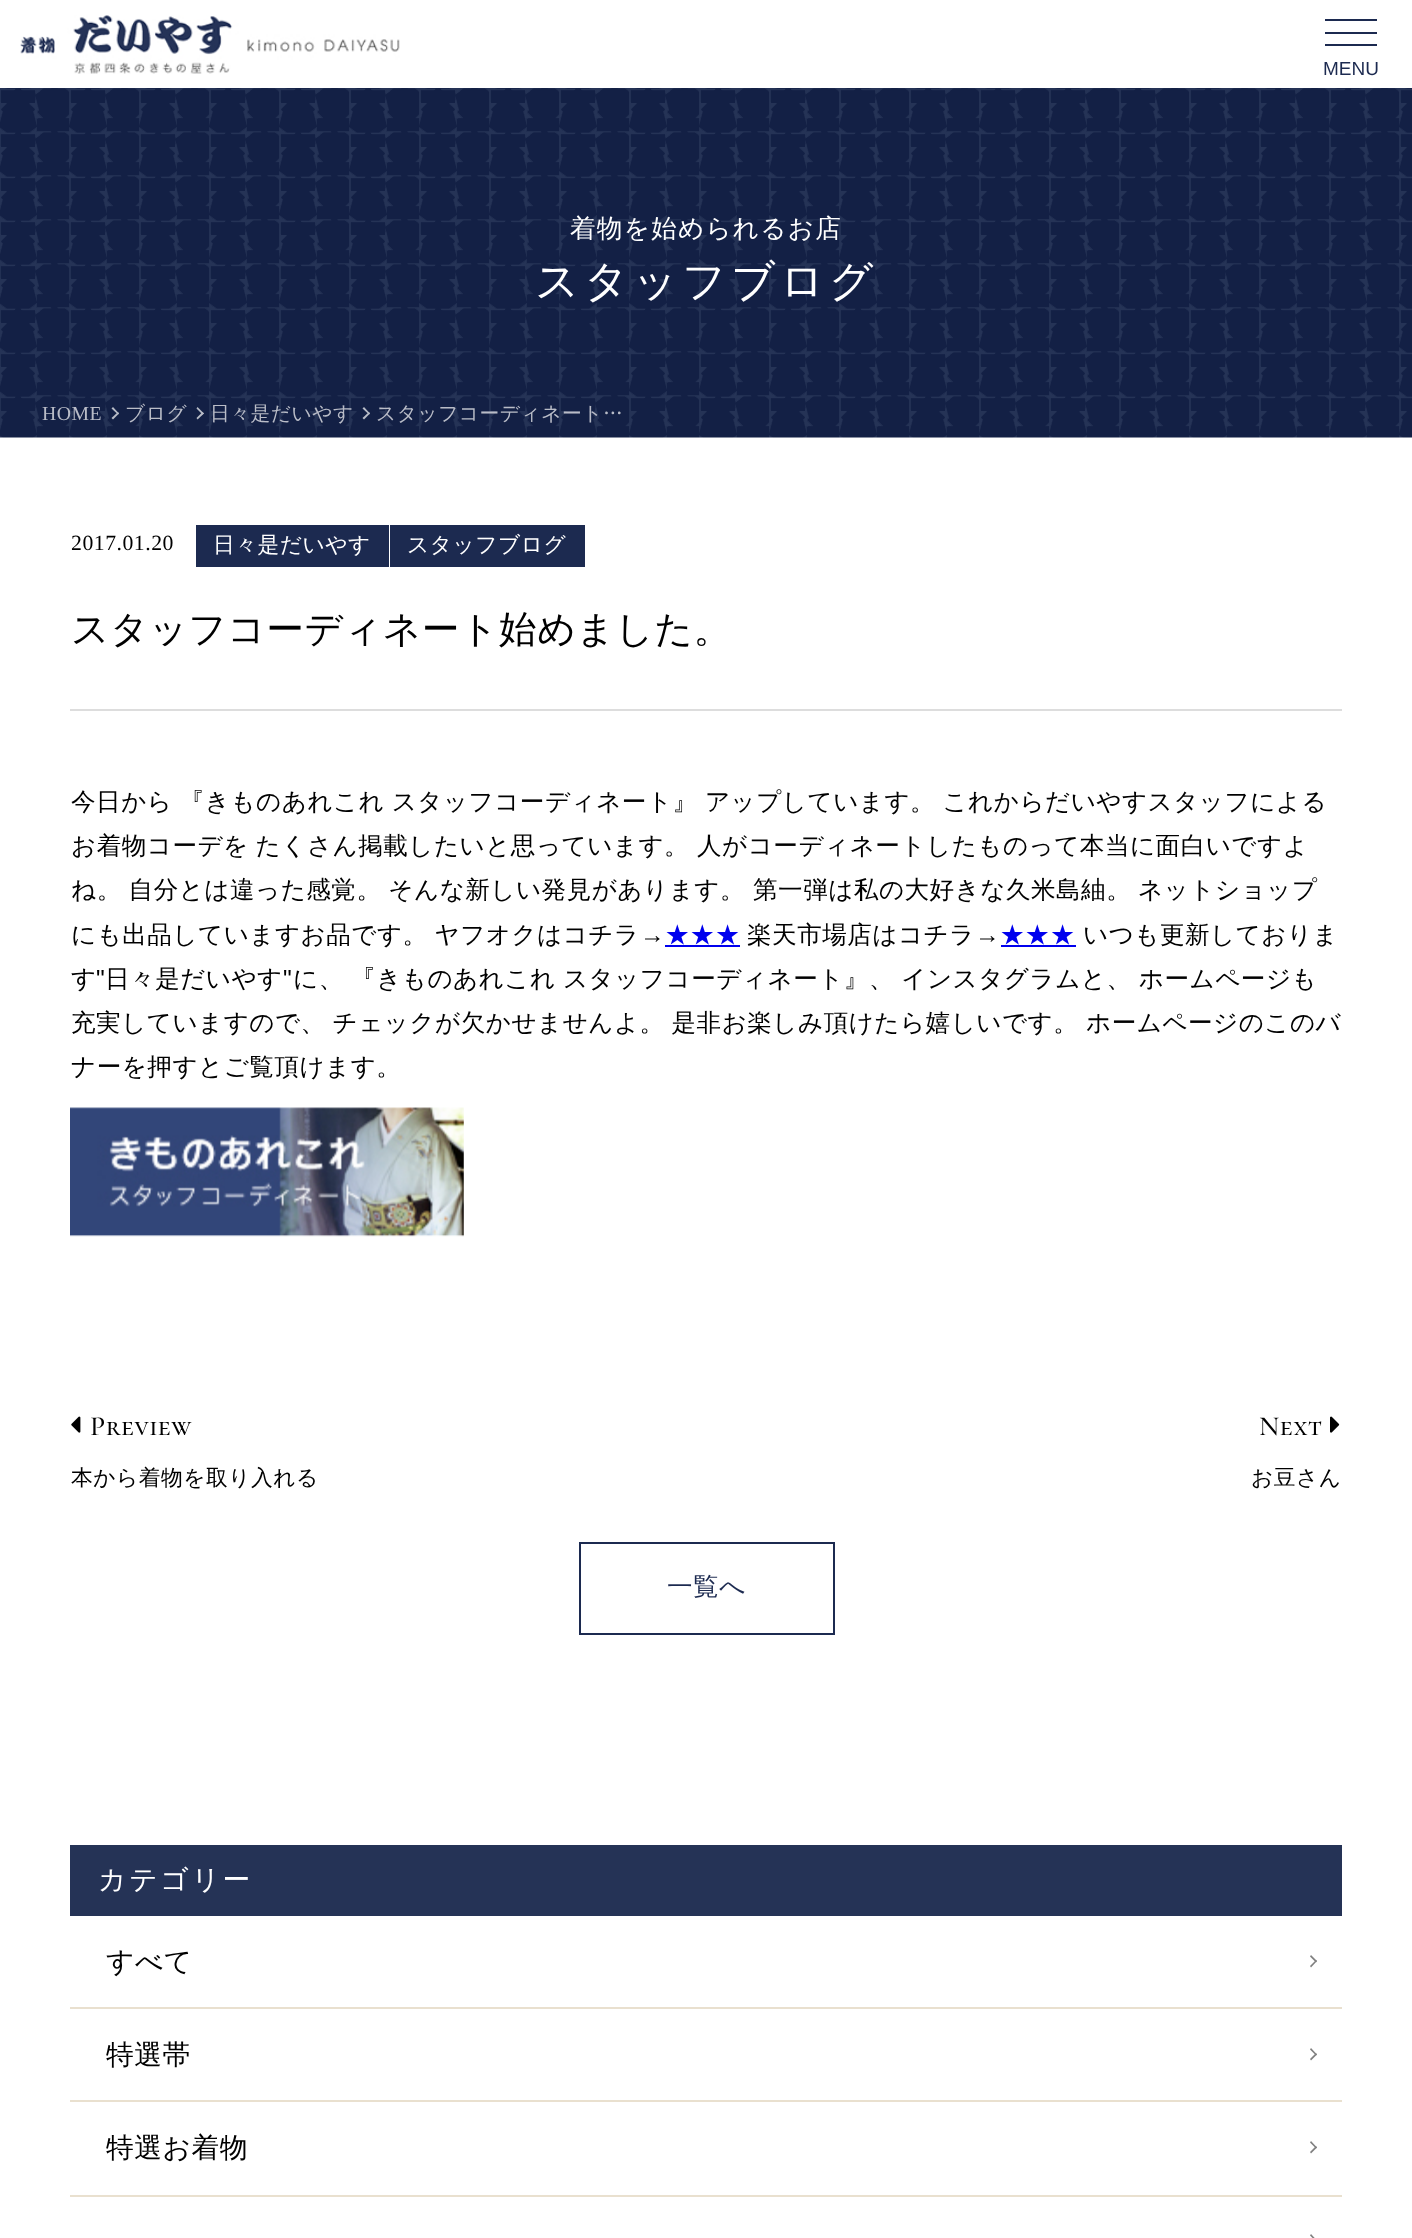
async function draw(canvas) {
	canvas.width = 1412;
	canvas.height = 2238;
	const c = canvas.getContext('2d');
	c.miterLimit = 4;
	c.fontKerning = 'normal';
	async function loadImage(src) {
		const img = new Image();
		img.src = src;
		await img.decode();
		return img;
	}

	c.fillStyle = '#fff';
	c.fillRect(0, 0, 1412, 2238);
	for (const [x, y, w, h, color] of [
		[1325, 32, 52, 2, '#1c2a50'],
		[1325, 19, 52, 2, '#1c2a50'],
		[1325, 44, 52, 2, '#1c2a50'],
	]) {
		c.fillStyle = color;
		c.fillRect(x, y, w, h);
	}
	c.font = '19px Liberation Sans';
	c.fillText('MENU', 1323, 75);
	c.drawImage(await loadImage('img1.png'), 20, 15, 380, 59);
	c.drawImage(await loadImage('img2.png'), 0, 88, 1412, 350);
	c.letterSpacing = '1.25px';
	c.font = '500 25.6px WenQuanYi Zen Hei';
	c.fillStyle = '#fff';
	c.fillText('着物を始められるお店', 570, 237);
	c.letterSpacing = '4.5px';
	c.font = '500 43.5px WenQuanYi Zen Hei';
	c.fillText('スタッフブログ', 535, 296);
	c.letterSpacing = '0.5px';
	c.font = '19.75px Liberation Serif';
	c.fillStyle = '#b9bcc7';
	c.fillText('HOME', 42, 420);
	c.fillStyle = '#b8bcc7';
	c.beginPath();
	c.moveTo(113, 407);
	c.lineTo(119, 413.5);
	c.lineTo(118, 414.5);
	c.lineTo(111.5, 408.5);
	c.closePath();
	c.fill();
	c.beginPath();
	c.moveTo(118, 412);
	c.lineTo(119, 413.5);
	c.lineTo(113, 419.5);
	c.lineTo(111.5, 418);
	c.closePath();
	c.fill();
	c.font = '500 19.75px WenQuanYi Zen Hei';
	c.fillStyle = '#b9bcc7';
	c.fillText('ブログ', 125, 420);
	c.fillStyle = '#b8bcc7';
	c.beginPath();
	c.moveTo(197.5, 407);
	c.lineTo(204, 413.5);
	c.lineTo(202.5, 414.5);
	c.lineTo(196.5, 408.5);
	c.closePath();
	c.fill();
	c.beginPath();
	c.moveTo(202.5, 412);
	c.lineTo(204, 413.5);
	c.lineTo(197.5, 419.5);
	c.lineTo(196.5, 418);
	c.closePath();
	c.fill();
	c.fillStyle = '#b9bcc7';
	c.fillText('日々是だいやす', 210, 420);
	c.fillStyle = '#b8bcc7';
	c.beginPath();
	c.moveTo(364, 407);
	c.lineTo(370, 413.5);
	c.lineTo(369, 414.5);
	c.lineTo(362.5, 408.5);
	c.closePath();
	c.fill();
	c.beginPath();
	c.moveTo(369, 412);
	c.lineTo(370, 413.5);
	c.lineTo(364, 419.5);
	c.lineTo(362.5, 418);
	c.closePath();
	c.fill();
	c.fillStyle = '#b9bcc7';
	c.fillText('スタッフコーディネート…', 376, 420);
	c.fillStyle = '#ddd';
	c.fillRect(70, 709, 1272, 2);
	c.font = '21.75px Liberation Serif';
	c.fillStyle = '#000';
	c.fillText('2017.01.20', 71, 550);
	c.fillStyle = '#1c2a50';
	c.fillRect(196, 525, 193, 42);
	c.font = '500 21.75px WenQuanYi Zen Hei';
	c.fillStyle = '#fff';
	c.fillText('日々是だいやす', 213, 552);
	c.fillStyle = '#1c2a50';
	c.fillRect(390, 525, 195, 42);
	c.fillStyle = '#fff';
	c.fillText('スタッフブログ', 407, 552);
	c.font = '500 37.7px WenQuanYi Zen Hei';
	c.fillStyle = '#000';
	c.fillText('スタッフコーディネート始めました。', 71, 642);
	c.wordSpacing = '-0.5px';
	c.font = '500 24.57px WenQuanYi Zen Hei';
	c.fillText('今日から 『きものあれこれ スタッフコーディネート』 アップしています。 これからだいやすスタッフによる', 71, 810);
	c.wordSpacing = '-1px';
	c.fillText('お着物コーデを たくさん掲載したいと思っています。', 71, 854);
	c.wordSpacing = '0px';
	c.fillText('人がコーディネートしたものって本当に面白いですよ', 697, 854);
	c.wordSpacing = '-1px';
	for (const [text, x, y] of [
		['ね。 自分とは違った感覚。 そんな新しい発見があります。', 71, 898],
		['第一弾は私の大好きな久米島紬。 ネットショップ', 753, 898],
		['にも出品していますお品です。 ヤフオクはコチラ', 71, 943],
	]) {
		c.fillText(text, x, y);
	}
	c.wordSpacing = '0px';
	c.font = '24.57px Liberation Sans';
	c.fillText('→', 640, 943);
	c.font = '500 24.57px WenQuanYi Zen Hei';
	c.fillStyle = '#00e';
	c.fillText('★★★', 665, 943);
	c.fillRect(665, 945, 75, 2);
	c.fillStyle = '#000';
	c.fillText('楽天市場店はコチラ', 747, 943);
	c.font = '24.57px Liberation Sans';
	c.fillText('→', 975, 943);
	c.font = '500 24.57px WenQuanYi Zen Hei';
	c.fillStyle = '#00e';
	c.fillText('★★★', 1000, 943);
	c.fillRect(1001, 945, 75, 2);
	c.fillStyle = '#000';
	c.fillText('いつも更新しておりま', 1083, 943);
	c.fillText('す', 71, 987);
	c.font = '24.57px Liberation Sans';
	c.fillText('"', 96, 987);
	c.font = '500 24.57px WenQuanYi Zen Hei';
	c.fillText('日々是だいやす', 105, 987);
	c.font = '24.57px Liberation Sans';
	c.fillText('"', 283, 987);
	c.wordSpacing = '-0.5px';
	c.font = '500 24.57px WenQuanYi Zen Hei';
	c.fillText('に、 『きものあれこれ スタッフコーディネート』、 インスタグラムと、 ホームページも', 293, 987);
	c.wordSpacing = '-1px';
	c.fillText('充実していますので、 チェックが欠かせませんよ。 是非お楽しみ頂けたら嬉しいです。', 71, 1031);
	c.wordSpacing = '0px';
	c.fillText('ホームページのこのバ', 1086, 1031);
	c.fillText('ナーを押すとご覧頂けます。', 71, 1075);
	c.drawImage(await loadImage('img3.png'), 70, 1107, 394, 130);
	c.drawImage(await loadImage('img4.png'), 71, 1416, 10, 17);
	c.font = '500 27.75px Cormorant SC';
	c.fillText('Preview', 90, 1435);
	c.font = '500 21.75px WenQuanYi Zen Hei';
	c.fillText('本から着物を取り入れる', 71, 1485);
	c.font = '500 27.75px Cormorant SC';
	c.fillText('Next', 1259, 1435);
	c.drawImage(await loadImage('img5.png'), 1330, 1416, 10, 17);
	c.font = '500 21.75px WenQuanYi Zen Hei';
	c.fillText('お豆さん', 1251, 1485);
	c.strokeStyle = '#1c2a50';
	c.lineWidth = 2;
	c.strokeRect(580, 1543, 254, 91);
	c.font = '500 25.6px WenQuanYi Zen Hei';
	c.fillStyle = '#1c2a50';
	c.fillText('一覧へ', 667, 1595);
	c.fillStyle = '#253356';
	c.fillRect(70, 1845, 1272, 71);
	c.letterSpacing = '2.75px';
	c.font = '500 27.75px WenQuanYi Zen Hei';
	c.fillStyle = '#fff';
	c.fillText('カテゴリー', 98, 1889);
	c.fillStyle = '#e9e0cf';
	c.fillRect(70, 2007, 1272, 2);
	c.letterSpacing = '0.5px';
	c.fillStyle = '#000';
	c.fillText('すべて', 106, 1971);
	c.fillStyle = '#808080';
	c.beginPath();
	c.moveTo(1311, 1955);
	c.lineTo(1317, 1961);
	c.lineTo(1316, 1962.5);
	c.lineTo(1310, 1956.5);
	c.closePath();
	c.fill();
	c.beginPath();
	c.moveTo(1316, 1960);
	c.lineTo(1317, 1961);
	c.lineTo(1311, 1967.5);
	c.lineTo(1310, 1966);
	c.closePath();
	c.fill();
	c.fillStyle = '#e9e0cf';
	c.fillRect(70, 2100, 1272, 2);
	c.fillStyle = '#000';
	c.fillText('特選帯', 106, 2064);
	c.fillStyle = '#808080';
	c.beginPath();
	c.moveTo(1311, 2048);
	c.lineTo(1317, 2054.5);
	c.lineTo(1316, 2055.5);
	c.lineTo(1310, 2049.5);
	c.closePath();
	c.fill();
	c.beginPath();
	c.moveTo(1316, 2053);
	c.lineTo(1317, 2054.5);
	c.lineTo(1311, 2060.5);
	c.lineTo(1310, 2059);
	c.closePath();
	c.fill();
	c.fillStyle = '#e9e0cf';
	c.fillRect(70, 2195, 1272, 2);
	c.fillStyle = '#000';
	c.fillText('特選お着物', 106, 2157);
	c.fillStyle = '#808080';
	c.beginPath();
	c.moveTo(1311, 2141);
	c.lineTo(1317, 2147.5);
	c.lineTo(1316, 2148.5);
	c.lineTo(1310, 2142.5);
	c.closePath();
	c.fill();
	c.beginPath();
	c.moveTo(1316, 2146);
	c.lineTo(1317, 2147.5);
	c.lineTo(1311, 2153.5);
	c.lineTo(1310, 2152);
	c.closePath();
	c.fill();
	c.beginPath();
	c.moveTo(1311, 2234);
	c.lineTo(1317, 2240.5);
	c.lineTo(1316, 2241.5);
	c.lineTo(1310, 2235.5);
	c.closePath();
	c.fill();
}

draw(document.querySelector('canvas'));
